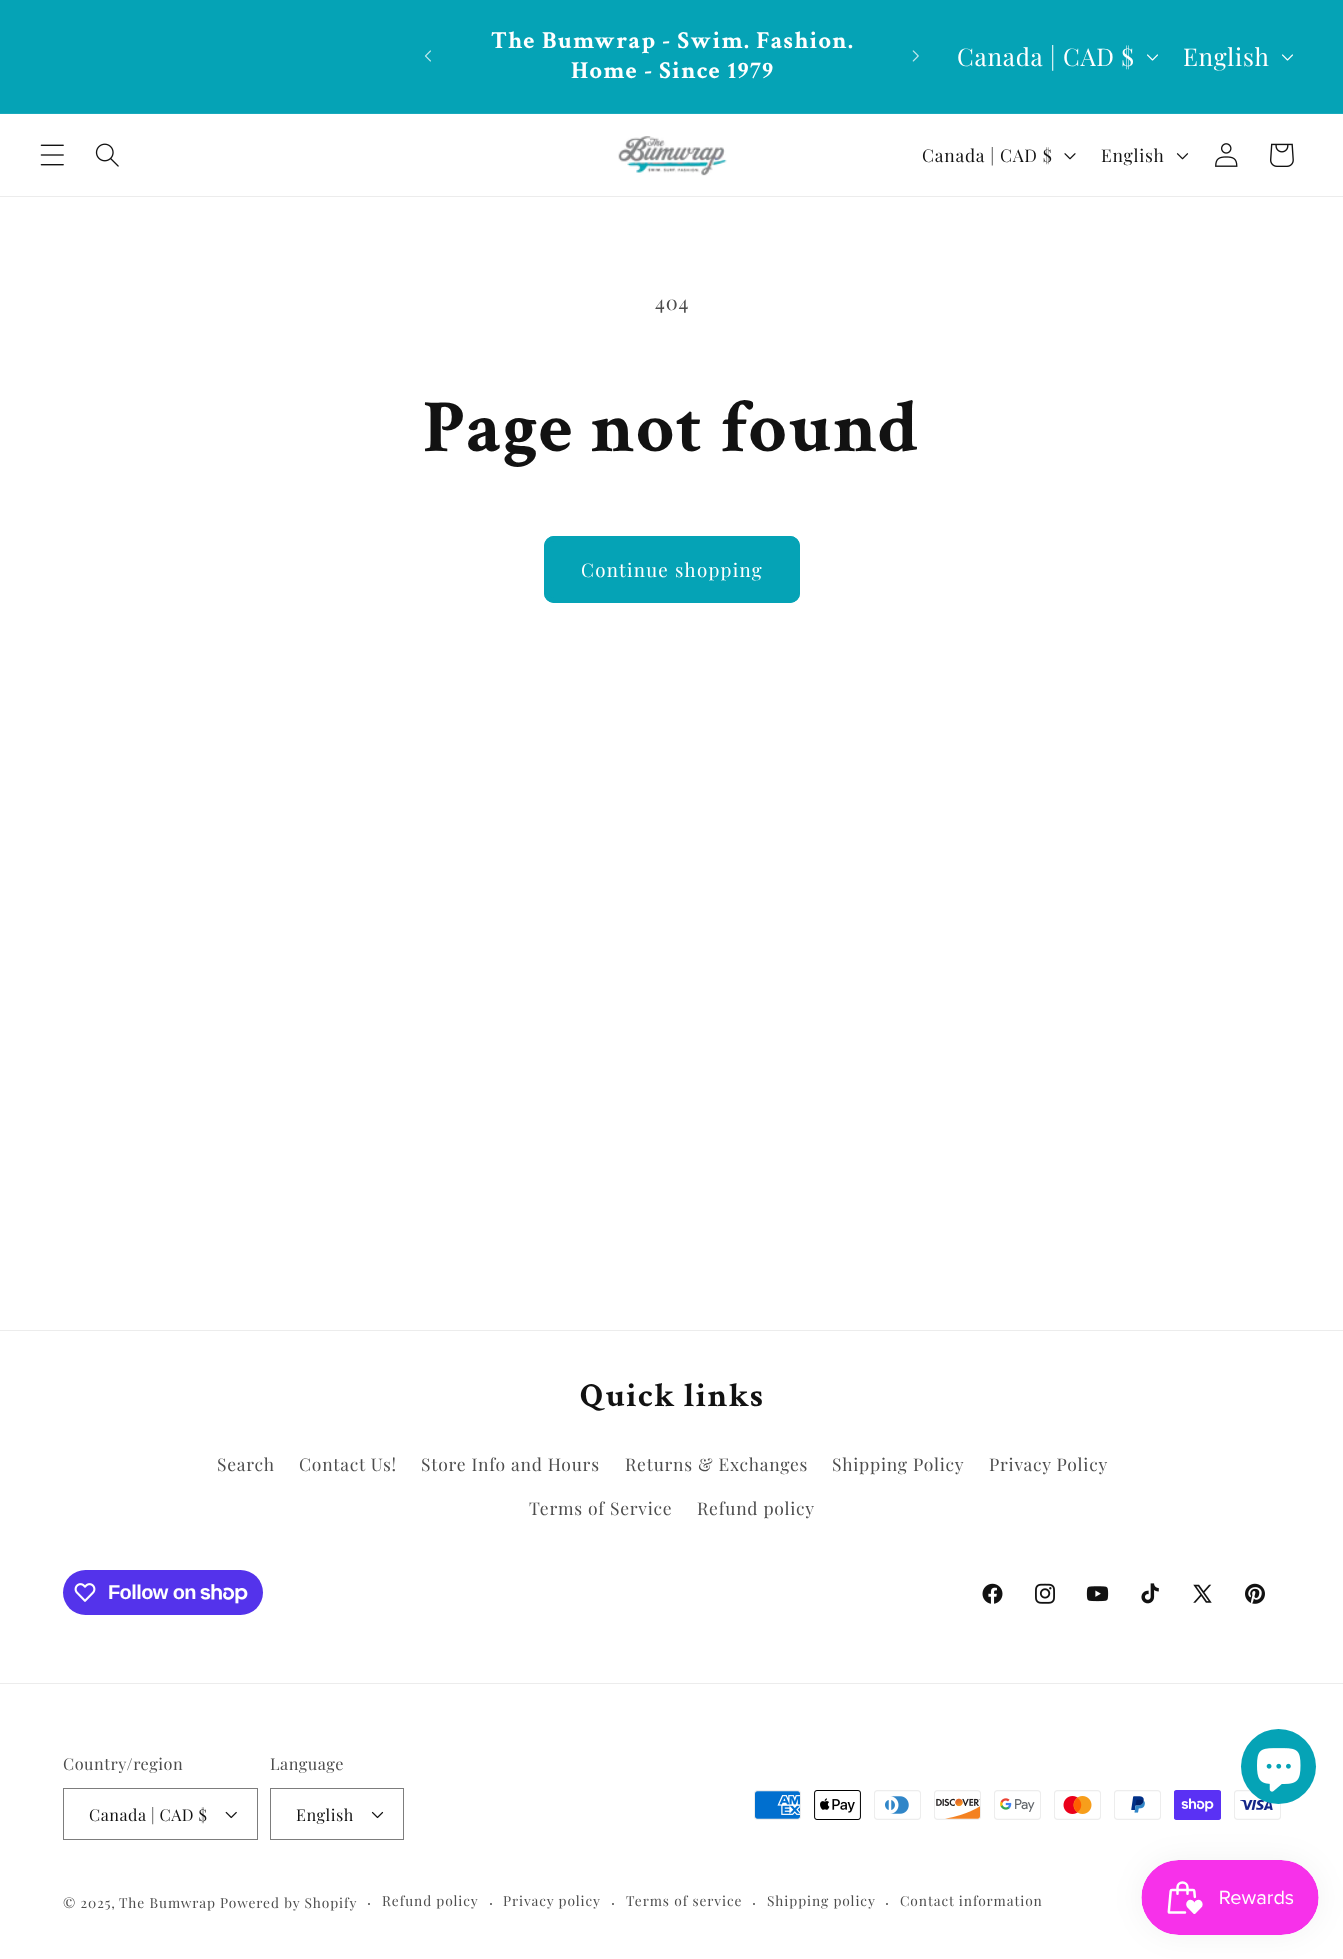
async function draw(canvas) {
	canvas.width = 1343;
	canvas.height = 1959;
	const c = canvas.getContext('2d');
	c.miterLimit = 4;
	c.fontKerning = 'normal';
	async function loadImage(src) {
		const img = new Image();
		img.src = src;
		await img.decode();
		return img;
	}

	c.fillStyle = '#fff';
	c.fillRect(0, 0, 1343, 1959);
	c.fillStyle = '#05a3b6';
	c.fillRect(0, 0, 1343, 113);
	c.fillStyle = '#19aabc';
	c.fillRect(0, 113, 1343, 1);
	c.drawImage(await loadImage('img1.png'), 424, 50, 7, 12);
	c.letterSpacing = '1.25px';
	c.font = 'bold 24.4px Crimson Text';
	c.fillStyle = '#fff';
	c.fillText('The Bumwrap - Swim. Fashion.', 491, 48);
	c.fillText('Home - Since 1979', 571, 78);
	c.drawImage(await loadImage('img2.png'), 912, 50, 7, 12);
	c.letterSpacing = '0.75px';
	c.font = '24.4px Playfair Display';
	c.fillText('Canada | CAD $', 957, 66);
	c.drawImage(await loadImage('img3.png'), 1147, 54, 11, 7);
	c.fillText('English', 1183, 66);
	c.drawImage(await loadImage('img3.png'), 1282, 54, 11, 7);
	c.fillStyle = '#ececec';
	c.fillRect(0, 196, 1343, 1);
	c.drawImage(await loadImage('img4.png'), 40, 144, 24, 22);
	c.drawImage(await loadImage('img5.png'), 95, 143, 24, 24);
	c.drawImage(await loadImage('img6.png'), 618, 136, 109, 40);
	c.font = '17.5px Playfair Display';
	c.fillStyle = '#121212';
	c.fillText('Canada | CAD $', 922, 162);
	c.drawImage(await loadImage('img7.png'), 1064, 153, 12, 7);
	c.fillText('English', 1101, 162);
	c.drawImage(await loadImage('img8.png'), 1176, 153, 13, 7);
	c.drawImage(await loadImage('img9.png'), 1215, 143, 23, 24);
	c.drawImage(await loadImage('img10.png'), 1270, 143, 24, 24);
	c.font = '20px Playfair Display';
	c.fillStyle = '#4d4d4d';
	c.fillText('404', 655, 310);
	c.letterSpacing = '1.1px';
	c.font = 'bold 75px Crimson Text';
	c.fillStyle = '#121212';
	c.fillText('Page not found', 423, 451);
	c.fillStyle = '#05a3b6';
	c.beginPath();
	c.roundRect(544, 536, 256, 67, 10);
	c.fill();
	c.beginPath();
	c.roundRect(546.5, 538.5, 251, 62, 7.5);
	c.strokeStyle = '#05a3b6';
	c.lineWidth = 5;
	c.stroke();
	c.letterSpacing = '1.25px';
	c.font = '18.75px Playfair Display';
	c.fillStyle = '#fff';
	c.fillText('Continue shopping', 581, 577);
	c.fillStyle = '#ececec';
	c.fillRect(0, 1330, 1343, 1);
	c.letterSpacing = '1.1px';
	c.font = 'bold 33.75px Crimson Text';
	c.fillStyle = '#121212';
	c.fillText('Quick links', 580, 1406);
	c.letterSpacing = '0.75px';
	c.font = '17.5px Playfair Display';
	c.fillStyle = '#4d4d4d';
	for (const [text, x, y] of [
		['Search', 217, 1471],
		['Contact Us!', 299, 1471],
		['Store Info and Hours', 421, 1471],
		['Returns & Exchanges', 625, 1471],
		['Shipping Policy', 832, 1471],
		['Privacy Policy', 989, 1471],
		['Terms of Service', 529, 1515],
		['Refund policy', 697, 1515],
	]) {
		c.fillText(text, x, y);
	}
	c.fillStyle = '#5433eb';
	c.beginPath();
	c.roundRect(63, 1570, 200, 45, 22.5);
	c.fill();
	c.drawImage(await loadImage('img11.png'), 74, 1583, 22, 19);
	c.letterSpacing = '-0.6px';
	c.font = 'bold 20px Liberation Sans';
	c.fillStyle = '#fff';
	c.fillText('Follow on', 108, 1599);
	c.drawImage(await loadImage('img12.png'), 200, 1584, 48, 20);
	c.drawImage(await loadImage('img13.png'), 982, 1583, 21, 21);
	c.drawImage(await loadImage('img14.png'), 1035, 1583, 20, 21);
	c.drawImage(await loadImage('img15.png'), 1086, 1586, 23, 16);
	c.drawImage(await loadImage('img16.png'), 1141, 1583, 18, 21);
	c.drawImage(await loadImage('img17.png'), 1193, 1584, 19, 19);
	c.drawImage(await loadImage('img18.png'), 1245, 1583, 20, 21);
	c.fillStyle = '#ececec';
	c.fillRect(0, 1683, 1343, 1);
	c.letterSpacing = '0.5px';
	c.font = '16.25px Playfair Display';
	c.fillStyle = '#4d4d4d';
	c.fillText('Country/region', 63, 1770);
	c.drawImage(await loadImage('img19.png'), 225, 1811, 12, 8);
	c.strokeStyle = '#7d7d7d';
	c.lineWidth = 1;
	c.strokeRect(63.5, 1788.5, 194, 51);
	c.fillStyle = '#121212';
	c.fillText('Canada | CAD $', 89, 1821);
	c.fillStyle = '#4d4d4d';
	c.fillText('Language', 270, 1770);
	c.drawImage(await loadImage('img20.png'), 371, 1811, 13, 8);
	c.strokeRect(270.5, 1788.5, 133, 51);
	c.fillStyle = '#121212';
	c.fillText('English', 296, 1821);
	c.drawImage(await loadImage('img21.png'), 754, 1790, 47, 30);
	c.drawImage(await loadImage('img22.png'), 814, 1790, 47, 30);
	c.drawImage(await loadImage('img23.png'), 874, 1790, 47, 30);
	c.drawImage(await loadImage('img24.png'), 934, 1790, 47, 30);
	c.drawImage(await loadImage('img25.png'), 994, 1790, 47, 30);
	c.drawImage(await loadImage('img26.png'), 1054, 1790, 47, 30);
	c.drawImage(await loadImage('img27.png'), 1114, 1790, 47, 30);
	c.drawImage(await loadImage('img28.png'), 1174, 1790, 47, 30);
	c.drawImage(await loadImage('img29.png'), 1234, 1790, 47, 30);
	c.letterSpacing = '0.9px';
	c.font = '13.75px Playfair Display';
	c.fillStyle = '#4d4d4d';
	for (const [text, x, y] of [
		['© 2025,', 63, 1908],
		['The Bumwrap', 119, 1908],
		['Powered by Shopify', 220, 1908],
	]) {
		c.fillText(text, x, y);
	}
	c.font = '15px Playfair Display';
	c.fillText('·', 367, 1908);
	c.font = '13.75px Playfair Display';
	c.fillText('Refund policy', 382, 1906);
	c.font = '15px Playfair Display';
	c.fillText('·', 489, 1908);
	c.font = '13.75px Playfair Display';
	c.fillText('Privacy policy', 503, 1906);
	c.font = '15px Playfair Display';
	c.fillText('·', 611, 1908);
	c.font = '13.75px Playfair Display';
	c.fillText('Terms of service', 626, 1906);
	c.font = '15px Playfair Display';
	c.fillText('·', 752, 1908);
	c.font = '13.75px Playfair Display';
	c.fillText('Shipping policy', 767, 1906);
	c.font = '15px Playfair Display';
	c.fillText('·', 885, 1908);
	c.font = '13.75px Playfair Display';
	c.fillText('Contact information', 900, 1906);
	c.fillStyle = '#05a3b6';
	c.beginPath();
	c.arc(1278.5, 1766.5, 37.5, 0, 2 * Math.PI);
	c.fill();
	c.drawImage(await loadImage('img30.png'), 1257, 1748, 44, 44);
	c.fillStyle = '#0000000d';
	c.filter = 'blur(15.5px)';
	c.beginPath();
	c.roundRect(1141, 1860, 178, 75, 37.5);
	c.fill();
	c.filter = 'none';
	c.drawImage(await loadImage('img31.png'), 1141, 1860, 178, 75);
}

draw(document.querySelector('canvas'));
